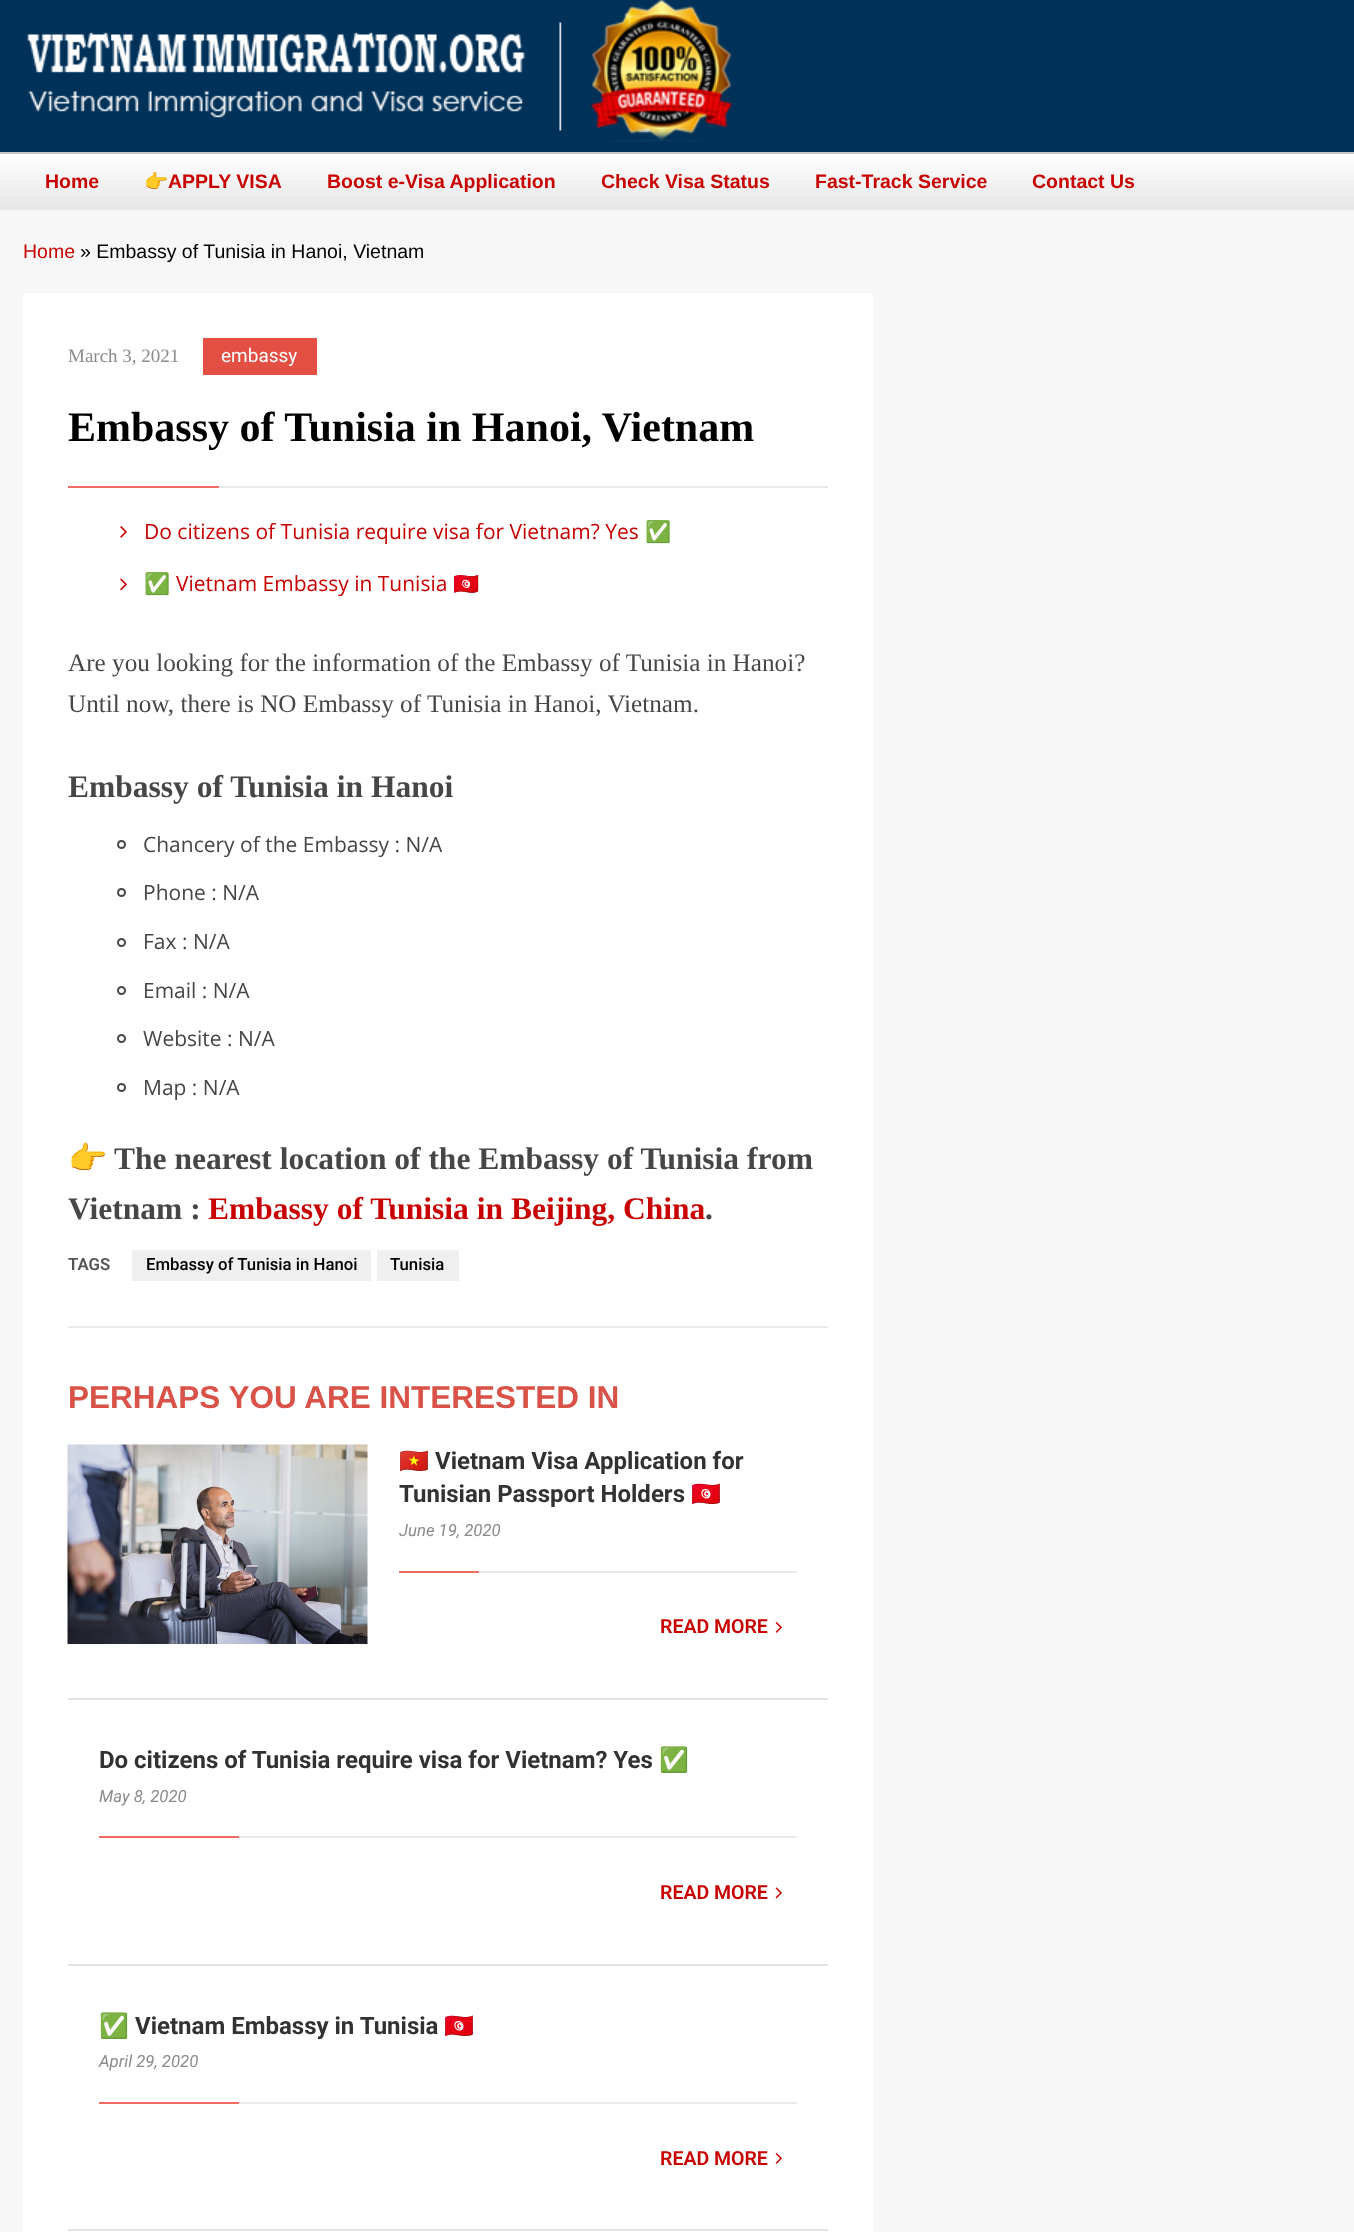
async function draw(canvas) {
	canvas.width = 1354;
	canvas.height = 2232;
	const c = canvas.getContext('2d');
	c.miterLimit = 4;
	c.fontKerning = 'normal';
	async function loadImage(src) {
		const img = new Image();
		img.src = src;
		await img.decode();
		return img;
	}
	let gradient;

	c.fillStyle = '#003259';
	c.fillRect(0, 0, 1354, 2232);
	c.drawImage(await loadImage('img1.png'), 26, 0, 706, 142);
	gradient = c.createLinearGradient(677, 153, 677, 210);
	gradient.addColorStop(0, '#fff');
	gradient.addColorStop(0.1, '#fcfcfc');
	gradient.addColorStop(1, '#e7e7e7');
	c.fillStyle = gradient;
	c.fillRect(0, 154, 1354, 56);
	c.fillStyle = '#c5c5c5';
	c.fillRect(0, 152, 1354, 2);
	c.font = 'bold 19.5px Liberation Sans';
	c.fillStyle = '#c80000';
	c.fillText('Home', 45, 188);
	c.font = 'bold 19.5px Noto Color Emoji';
	c.fillText('👉', 144, 188);
	c.font = 'bold 19.5px Liberation Sans';
	for (const [text, x, y] of [
		['APPLY VISA', 168, 188],
		['Boost e-Visa Application', 327, 188],
		['Check Visa Status', 601, 188],
		['Fast-Track Service', 815, 188],
		['Contact Us', 1032, 188],
	]) {
		c.fillText(text, x, y);
	}
	c.fillStyle = '#f7f7f7';
	c.fillRect(0, 210, 1354, 2022);
	c.font = '19.5px Liberation Sans';
	c.fillStyle = '#c80000';
	c.fillText('Home', 23, 258);
	c.fillStyle = '#000';
	c.fillText('» Embassy of Tunisia in Hanoi, Vietnam', 80, 258);
	c.fillStyle = '#fff';
	c.fillRect(23, 293, 850, 1939);
	c.font = '19px Liberation Serif';
	c.fillStyle = '#8b8b8b';
	c.fillText('March 3, 2021', 68, 362);
	c.fillStyle = '#e34f43';
	c.fillRect(203, 338, 114, 37);
	c.font = '19px Roboto';
	c.fillStyle = '#fff';
	c.fillText('embassy', 221, 362);
	c.font = 'bold 42px Liberation Serif';
	c.fillStyle = '#000';
	c.fillText('Embassy of Tunisia in Hanoi, Vietnam', 68, 441);
	c.fillStyle = '#e9e9e9';
	c.fillRect(219, 486, 609, 2);
	c.fillStyle = '#f26c61';
	c.fillRect(68, 486, 151, 2);
	c.drawImage(await loadImage('img2.png'), 120, 526, 7, 12);
	c.font = '21px Open Sans';
	c.fillStyle = '#c80000';
	c.fillText('Do citizens of Tunisia require visa for Vietnam? Yes', 144, 539);
	c.font = '21px Noto Color Emoji';
	c.fillText('✅', 645, 539);
	c.drawImage(await loadImage('img3.png'), 120, 578, 7, 13);
	c.fillText('✅', 144, 591);
	c.font = '21px Open Sans';
	c.fillText('Vietnam Embassy in Tunisia', 176, 591);
	c.font = '21px Noto Color Emoji';
	c.fillText('🇹🇳', 453, 591);
	c.font = '25.2px Liberation Serif';
	c.fillStyle = '#464646';
	c.fillText('Are you looking for the information of the Embassy of Tunisia in Hanoi?', 68, 671);
	c.fillText('Until now, there is NO Embassy of Tunisia in Hanoi, Vietnam.', 68, 712);
	c.font = 'bold 31.5px Liberation Serif';
	c.fillText('Embassy of Tunisia in Hanoi', 68, 797);
	c.beginPath();
	c.arc(121.5, 844.5, 3.5, 0, 2 * Math.PI);
	c.strokeStyle = '#464646';
	c.lineWidth = 2;
	c.stroke();
	c.font = '21px Open Sans';
	c.fillText('Chancery of the Embassy : N/A', 143, 852);
	c.beginPath();
	c.arc(121.5, 892.5, 3.5, 0, 2 * Math.PI);
	c.stroke();
	c.fillText('Phone : N/A', 143, 900);
	c.beginPath();
	c.arc(121.5, 942.5, 3.5, 0, 2 * Math.PI);
	c.stroke();
	c.fillText('Fax : N/A', 143, 949);
	c.beginPath();
	c.arc(121.5, 990.5, 3.5, 0, 2 * Math.PI);
	c.stroke();
	c.fillText('Email : N/A', 143, 998);
	c.beginPath();
	c.arc(121.5, 1038.5, 3.5, 0, 2 * Math.PI);
	c.stroke();
	c.fillText('Website : N/A', 143, 1046);
	c.beginPath();
	c.arc(121.5, 1087.5, 3.5, 0, 2 * Math.PI);
	c.stroke();
	c.fillText('Map : N/A', 143, 1095);
	c.font = 'bold 31.5px Noto Color Emoji';
	c.fillText('👉', 68, 1169);
	c.font = 'bold 31.5px Liberation Serif';
	c.fillText('The nearest location of the Embassy of Tunisia from', 114, 1169);
	c.fillText('Vietnam :', 68, 1219);
	c.fillStyle = '#c80000';
	c.fillText('Embassy of Tunisia in Beijing, China', 208, 1219);
	c.fillStyle = '#464646';
	c.fillText('.', 705, 1219);
	c.font = '600 16.75px Roboto';
	c.fillStyle = '#555';
	c.fillText('TAGS', 68, 1270);
	c.fillStyle = '#efefef';
	c.fillRect(132, 1250, 239, 31);
	c.font = '500 16.75px Roboto';
	c.fillStyle = '#000';
	c.fillText('Embassy of Tunisia in Hanoi', 146, 1270);
	c.fillStyle = '#efefef';
	c.fillRect(377, 1250, 82, 31);
	c.fillStyle = '#000';
	c.fillText('Tunisia', 390, 1270);
	c.fillStyle = '#ebebeb';
	c.fillRect(68, 1326, 760, 2);
	c.font = 'bold 31.5px Liberation Sans';
	c.fillStyle = '#d95247';
	c.fillText('PERHAPS YOU ARE INTERESTED IN', 68, 1408);
	c.fillStyle = '#e3e3e3';
	c.fillRect(68, 1698, 760, 2);
	c.drawImage(await loadImage('img4.png'), 67, 1444, 301, 200);
	c.font = 'bold 24px Noto Color Emoji';
	c.fillStyle = '#323232';
	c.fillText('🇻🇳', 399, 1469);
	c.font = 'bold 24px Roboto';
	c.fillText('Vietnam Visa Application for', 435, 1469);
	c.fillText('Tunisian Passport Holders', 399, 1502);
	c.font = 'bold 24px Noto Color Emoji';
	c.fillText('🇹🇳', 691, 1502);
	c.font = 'italic 16.75px Roboto';
	c.fillStyle = '#8b8b8b';
	c.fillText('June 19, 2020', 399, 1536);
	c.fillStyle = '#e9e9e9';
	c.fillRect(479, 1571, 318, 2);
	c.fillStyle = '#f26c61';
	c.fillRect(399, 1571, 80, 2);
	c.font = '600 19.5px Roboto';
	c.fillStyle = '#c80000';
	c.fillText('READ MORE', 660, 1633);
	c.drawImage(await loadImage('img5.png'), 775, 1622, 7, 11);
	c.fillStyle = '#e3e3e3';
	c.fillRect(68, 1964, 760, 2);
	c.font = 'bold 24px Roboto';
	c.fillStyle = '#323232';
	c.fillText('Do citizens of Tunisia require visa for Vietnam? Yes', 99, 1768);
	c.font = 'bold 24px Noto Color Emoji';
	c.fillText('✅', 659, 1768);
	c.font = 'italic 16.75px Roboto';
	c.fillStyle = '#8b8b8b';
	c.fillText('May 8, 2020', 99, 1802);
	c.fillStyle = '#e9e9e9';
	c.fillRect(239, 1836, 558, 2);
	c.fillStyle = '#f26c61';
	c.fillRect(99, 1836, 140, 2);
	c.font = '600 19.5px Roboto';
	c.fillStyle = '#c80000';
	c.fillText('READ MORE', 660, 1899);
	c.drawImage(await loadImage('img6.png'), 775, 1887, 7, 12);
	c.fillStyle = '#e3e3e3';
	c.fillRect(68, 2229, 760, 2);
	c.font = 'bold 24px Noto Color Emoji';
	c.fillStyle = '#323232';
	c.fillText('✅', 99, 2034);
	c.font = 'bold 24px Roboto';
	c.fillText('Vietnam Embassy in Tunisia', 135, 2034);
	c.font = 'bold 24px Noto Color Emoji';
	c.fillText('🇹🇳', 444, 2034);
	c.font = 'italic 16.75px Roboto';
	c.fillStyle = '#8b8b8b';
	c.fillText('April 29, 2020', 99, 2067);
	c.fillStyle = '#e9e9e9';
	c.fillRect(239, 2102, 558, 2);
	c.fillStyle = '#f26c61';
	c.fillRect(99, 2102, 140, 2);
	c.font = '600 19.5px Roboto';
	c.fillStyle = '#c80000';
	c.fillText('READ MORE', 660, 2165);
	c.drawImage(await loadImage('img5.png'), 775, 2153, 7, 11);
}

draw(document.querySelector('canvas'));
